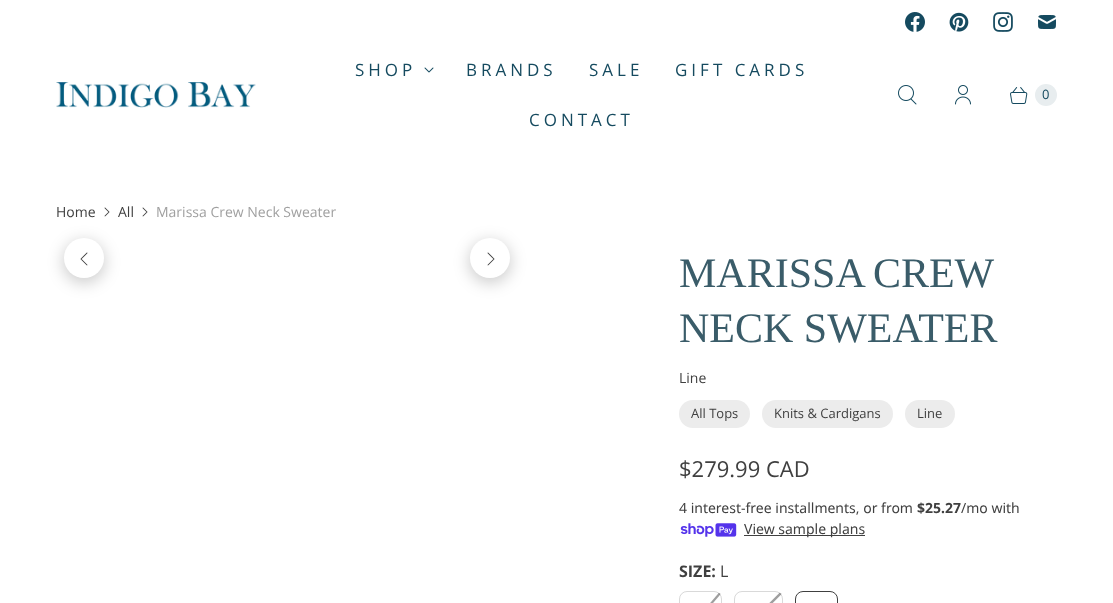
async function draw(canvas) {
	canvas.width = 1113;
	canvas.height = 603;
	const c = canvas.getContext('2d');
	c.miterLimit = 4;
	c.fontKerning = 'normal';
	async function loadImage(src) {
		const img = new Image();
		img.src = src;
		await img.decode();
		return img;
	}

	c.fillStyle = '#fff';
	c.fillRect(0, 0, 1113, 603);
	c.drawImage(await loadImage('img1.png'), 905, 12, 20, 20);
	c.drawImage(await loadImage('img2.png'), 949, 12, 20, 20);
	c.drawImage(await loadImage('img3.png'), 993, 12, 20, 20);
	c.drawImage(await loadImage('img4.png'), 1038, 15, 18, 14);
	c.drawImage(await loadImage('img5.png'), 56, 82, 200, 26);
	c.letterSpacing = '4px';
	c.font = '17px Open Sans';
	c.fillStyle = '#154a5f';
	c.fillText('SHOP', 355, 76);
	c.drawImage(await loadImage('img6.png'), 424, 67, 10, 6);
	for (const [text, x, y] of [
		['BRANDS', 466, 76],
		['SALE', 589, 76],
		['GIFT CARDS', 675, 76],
		['CONTACT', 529, 126],
	]) {
		c.fillText(text, x, y);
	}
	c.drawImage(await loadImage('img7.png'), 898, 85, 19, 20);
	c.drawImage(await loadImage('img8.png'), 955, 85, 16, 20);
	c.drawImage(await loadImage('img9.png'), 1010, 87, 18, 17);
	c.fillStyle = '#e8edef';
	c.beginPath();
	c.arc(1046, 95, 11, 0, 2 * Math.PI);
	c.fill();
	c.letterSpacing = '0px';
	c.font = '13px Open Sans';
	c.fillStyle = '#154a5f';
	c.fillText('0', 1042, 99);
	c.font = '14px Open Sans';
	c.fillStyle = '#404040';
	c.fillText('Home', 56, 217);
	c.drawImage(await loadImage('img10.png'), 104, 207, 6, 10);
	c.fillText('All', 118, 217);
	c.drawImage(await loadImage('img10.png'), 142, 207, 6, 10);
	c.fillStyle = '#a0a0a0';
	c.fillText('Marissa Crew Neck Sweater', 156, 217);
	c.fillStyle = '#00000033';
	c.filter = 'blur(8px)';
	c.beginPath();
	c.roundRect(63, 241, 42, 42, 21);
	c.fill();
	c.filter = 'none';
	c.fillStyle = '#fff';
	c.beginPath();
	c.arc(84, 258, 20, 0, 2 * Math.PI);
	c.fill();
	c.drawImage(await loadImage('img11.png'), 80, 252, 8, 14);
	c.fillStyle = '#00000033';
	c.filter = 'blur(8px)';
	c.beginPath();
	c.roundRect(469, 241, 42, 42, 21);
	c.fill();
	c.filter = 'none';
	c.fillStyle = '#fff';
	c.beginPath();
	c.arc(490, 258, 20, 0, 2 * Math.PI);
	c.fill();
	c.drawImage(await loadImage('img12.png'), 487, 252, 8, 14);
	c.wordSpacing = '-1px';
	c.font = '42px Liberation Serif';
	c.fillStyle = '#3a5c69';
	c.fillText('MARISSA CREW', 679, 287);
	c.wordSpacing = '0px';
	c.fillText('NECK SWEATER', 679, 342);
	c.font = '14px Open Sans';
	c.fillStyle = '#404040';
	c.fillText('Line', 679, 383);
	c.fillStyle = '#ececec';
	c.beginPath();
	c.roundRect(679, 400, 71, 28, 14);
	c.fill();
	c.font = '13px Open Sans';
	c.fillStyle = '#404040';
	c.fillText('All Tops', 691, 418);
	c.fillStyle = '#ececec';
	c.beginPath();
	c.roundRect(762, 400, 131, 28, 14);
	c.fill();
	c.fillStyle = '#404040';
	c.fillText('Knits & Cardigans', 774, 418);
	c.fillStyle = '#ececec';
	c.beginPath();
	c.roundRect(905, 400, 50, 28, 14);
	c.fill();
	c.fillStyle = '#404040';
	c.fillText('Line', 917, 418);
	c.font = '22px Open Sans';
	c.fillText('$279.99 CAD', 679, 477);
	c.font = '14px Noto Sans';
	c.fillText('4 interest-free installments, or from', 679, 513);
	c.font = 'bold 14px Noto Sans';
	c.fillText('$25.27', 917, 513);
	c.font = '14px Noto Sans';
	c.fillText('/mo with', 961, 513);
	c.drawImage(await loadImage('img13.png'), 680, 523, 57, 14);
	c.fillRect(744, 535, 121, 1);
	c.fillText('View sample plans', 744, 534);
	c.font = 'bold 16px Open Sans';
	c.fillText('SIZE:', 679, 577);
	c.font = '16px Open Sans';
	c.fillText('L', 720, 577);
	c.drawImage(await loadImage('img14.png'), 710, 593, 11, 10);
	c.beginPath();
	c.roundRect(679.5, 591.5, 42, 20, 7.5);
	c.strokeStyle = '#40404033';
	c.stroke();
	c.drawImage(await loadImage('img15.png'), 769, 592, 13, 11);
	c.beginPath();
	c.roundRect(734.5, 591.5, 48, 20, 7.5);
	c.stroke();
	c.beginPath();
	c.roundRect(795.5, 591.5, 42, 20, 7.5);
	c.strokeStyle = '#404040';
	c.stroke();
}

draw(document.querySelector('canvas'));
